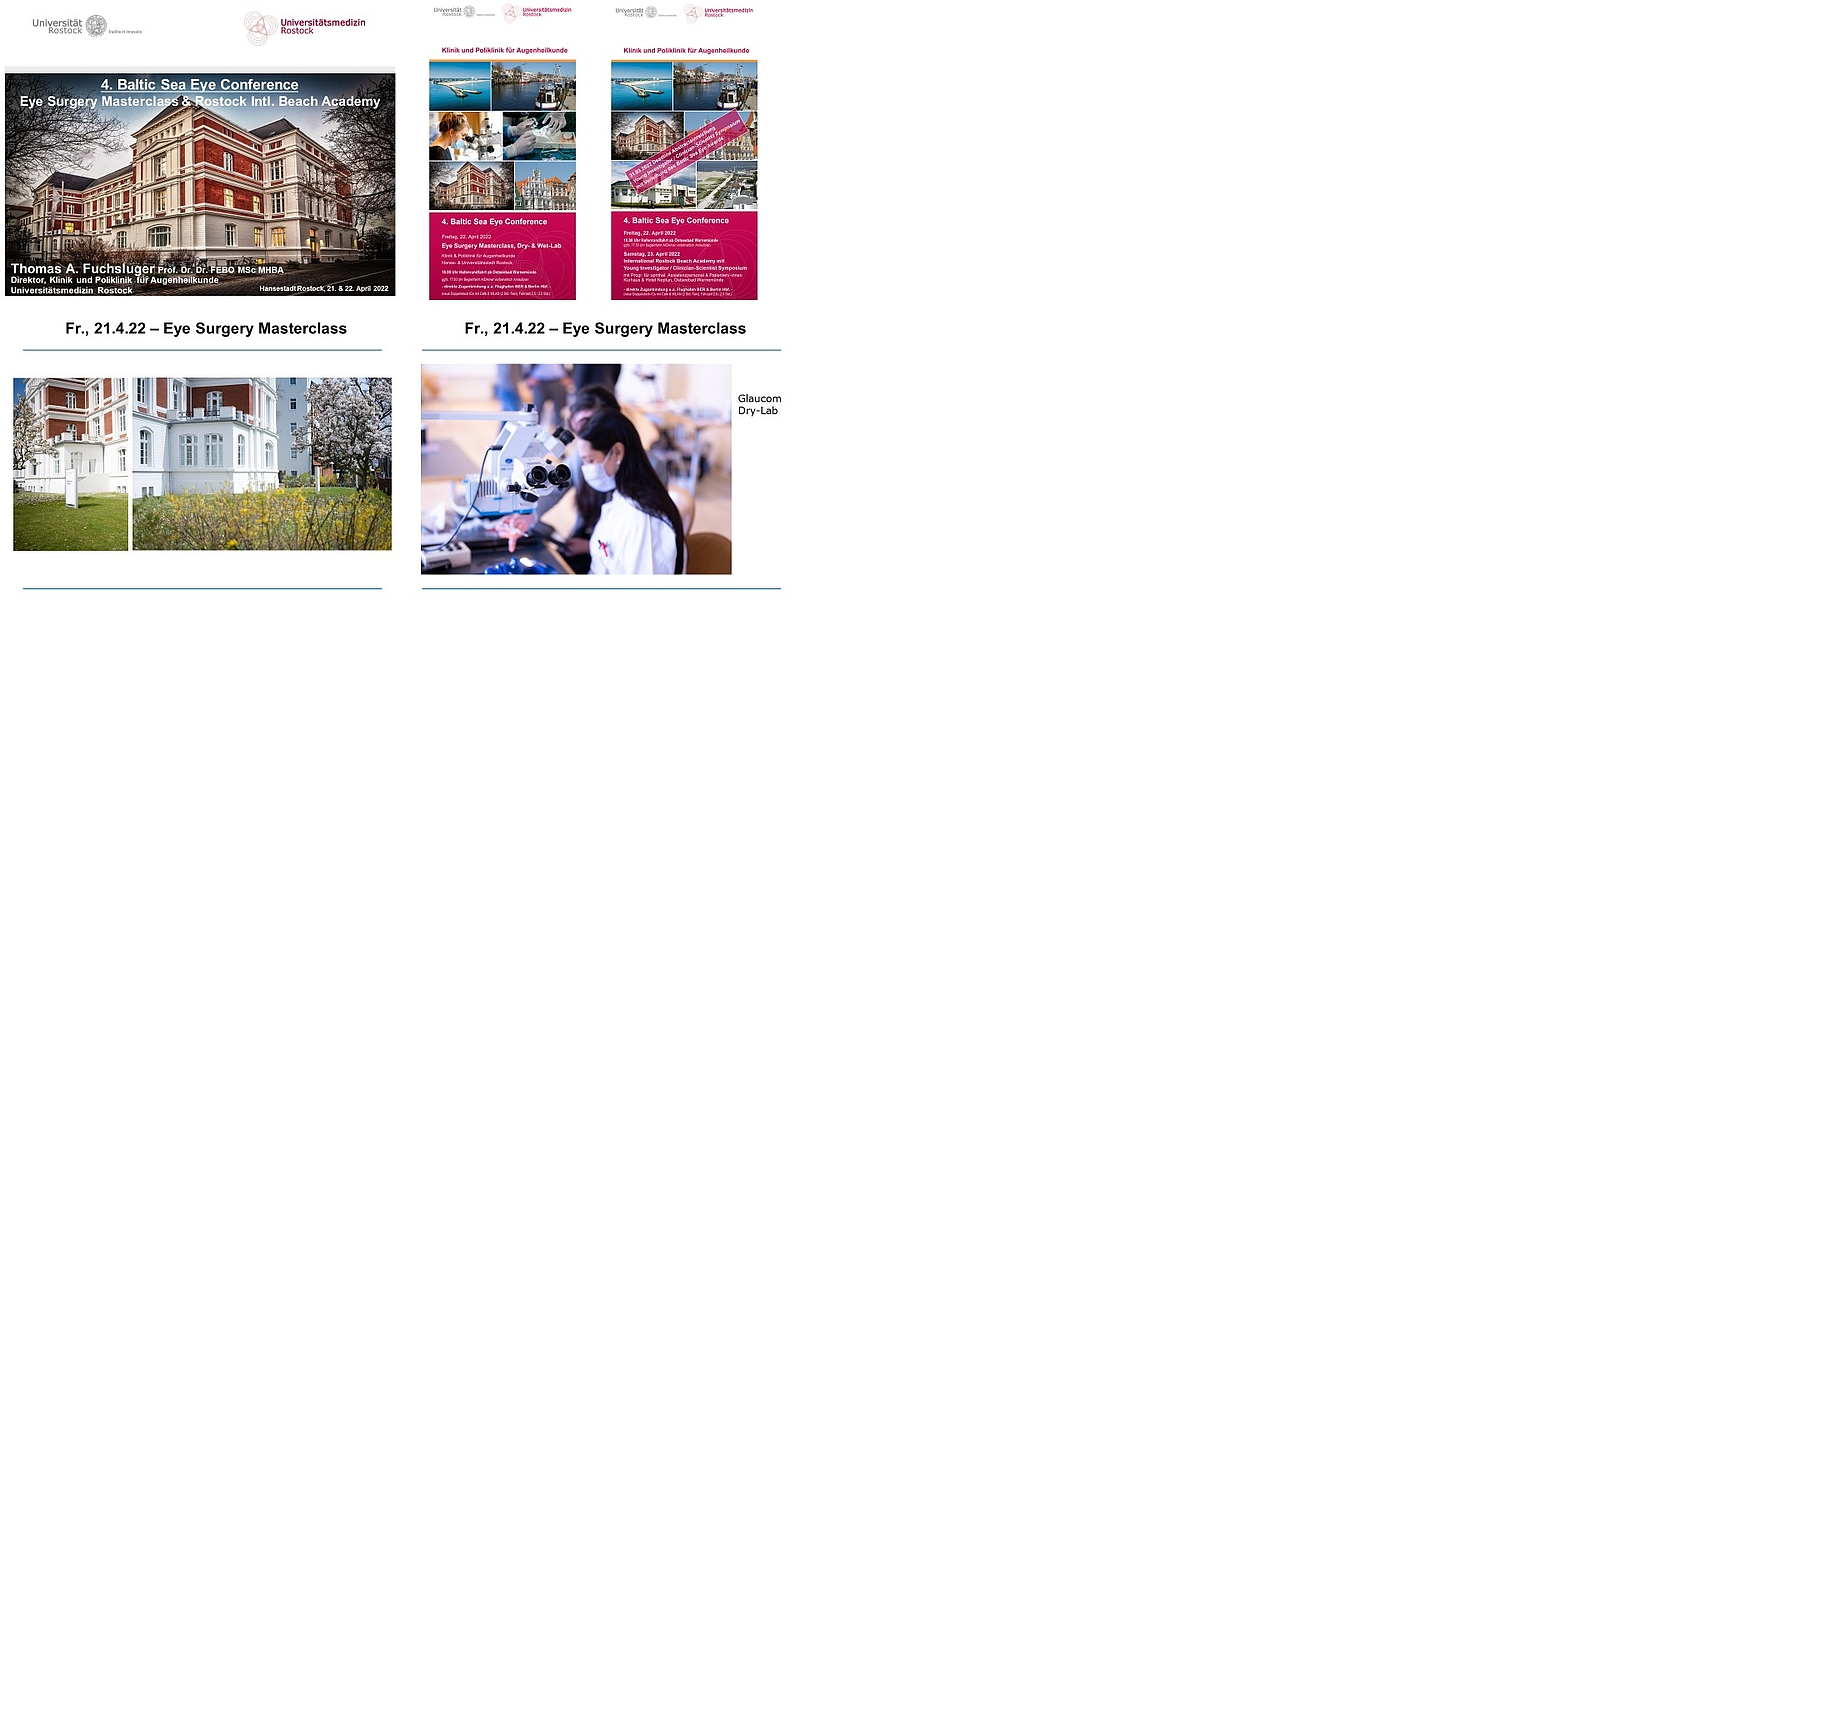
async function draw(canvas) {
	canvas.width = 1825;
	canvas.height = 1730;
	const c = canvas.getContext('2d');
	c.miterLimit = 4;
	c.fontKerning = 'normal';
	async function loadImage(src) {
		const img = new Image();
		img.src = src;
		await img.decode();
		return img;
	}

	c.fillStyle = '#fff';
	c.fillRect(0, 0, 1825, 1730);
	c.drawImage(await loadImage('img1.png'), 0, 0, 787, 600);
}

draw(document.querySelector('canvas'));
